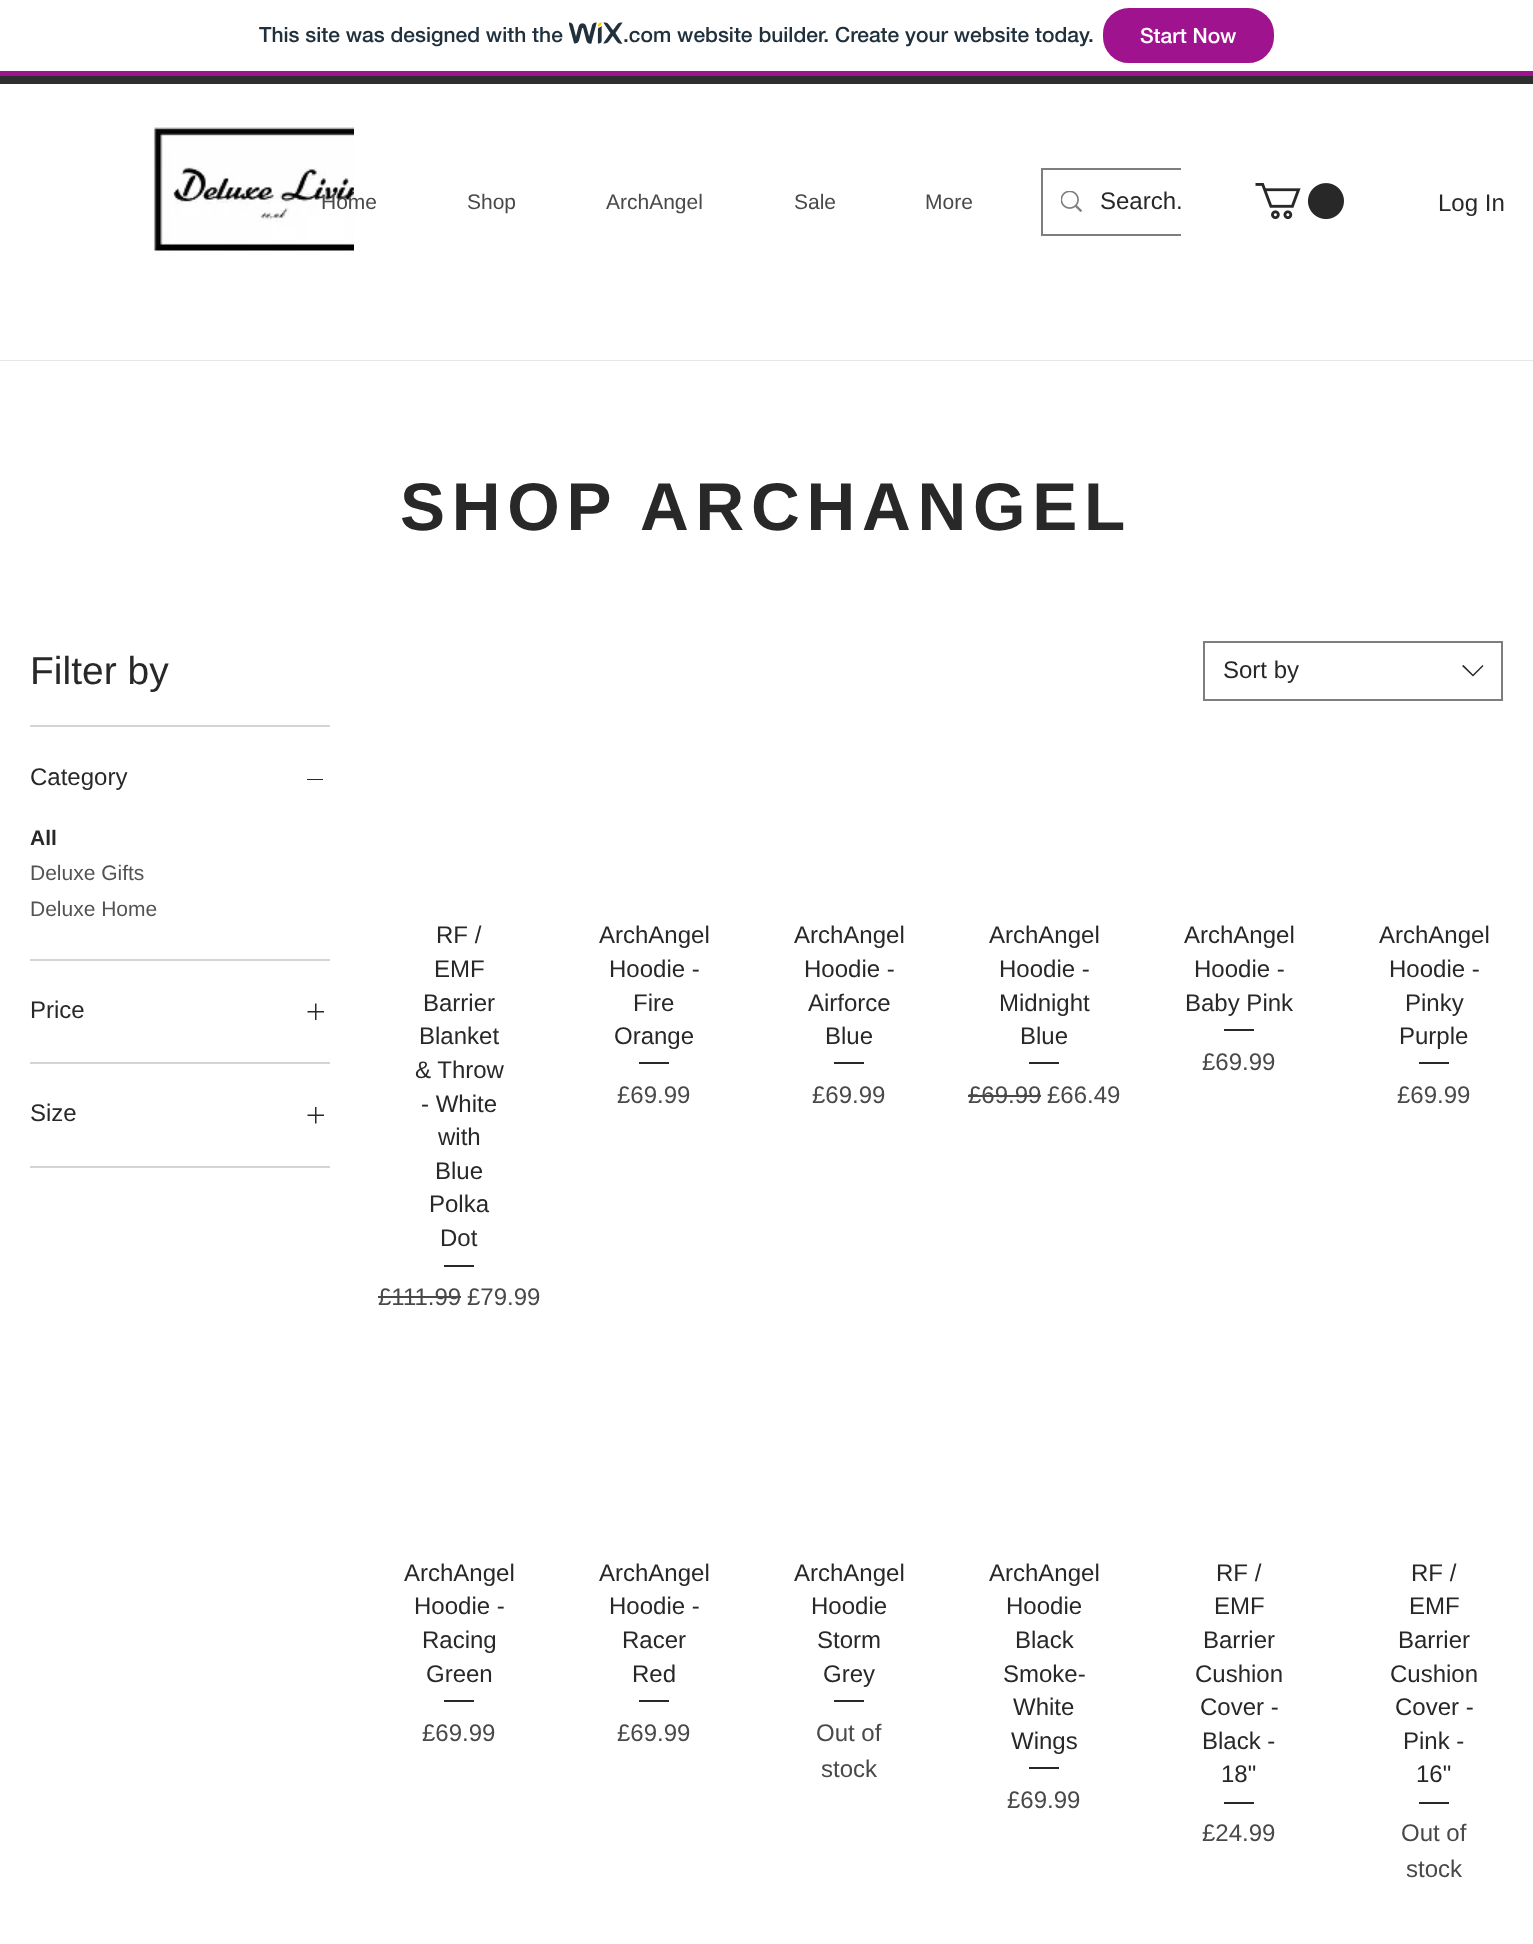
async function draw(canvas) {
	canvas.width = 1533;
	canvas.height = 1944;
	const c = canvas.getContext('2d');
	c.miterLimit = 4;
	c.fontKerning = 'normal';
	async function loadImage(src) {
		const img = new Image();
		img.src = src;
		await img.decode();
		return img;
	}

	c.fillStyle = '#fff';
	c.fillRect(0, 0, 1533, 1944);
	c.fillStyle = '#e7e7e7';
	c.fillRect(0, 360, 1533, 1);
	c.fillStyle = '#a0138e';
	c.fillRect(0, 71, 1533, 5);
	c.font = '500 21px "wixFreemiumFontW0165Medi"';
	c.fillStyle = '#20303c';
	c.fillText('This site was designed with the', 259, 42);
	c.drawImage(await loadImage('img1.png'), 569, 22, 54, 22);
	c.fillText('.com website builder. Create your website today.', 623, 42);
	c.fillStyle = '#a0138e';
	c.beginPath();
	c.roundRect(1104, 9, 169, 53, 25);
	c.fill();
	c.strokeStyle = '#a0138e';
	c.lineWidth = 2;
	c.stroke();
	c.fillStyle = '#fff';
	c.fillText('Start Now', 1140, 43);
	c.fillStyle = '#2e2e2e';
	c.fillRect(0, 76, 1533, 8);
	c.drawImage(await loadImage('img2.png'), 152, 120, 202, 135);
	c.font = '21px Liberation Sans';
	c.fillStyle = '#494949';
	for (const [text, x, y] of [
		['Home', 321, 209],
		['Shop', 467, 209],
		['ArchAngel', 606, 209],
		['Sale', 794, 209],
		['More', 925, 209],
	]) {
		c.fillText(text, x, y);
	}
	c.strokeStyle = '#28282899';
	c.strokeRect(1042, 169, 219, 66);
	c.drawImage(await loadImage('img3.png'), 1061, 191, 21, 21);
	c.font = '24px Liberation Sans';
	c.fillStyle = '#282828';
	c.fillText('Search.', 1100, 209);
	c.fillStyle = '#fff';
	c.fillRect(1181, 168, 81, 68);
	c.drawImage(await loadImage('img4.png'), 1255, 183, 89, 37);
	c.fillStyle = '#282828';
	c.fillText('Log In', 1438, 211);
	c.letterSpacing = '6.75px';
	c.font = 'bold 67.5px Liberation Sans';
	c.fillText('SHOP ARCHANGEL', 400, 530);
	c.fillStyle = '#d4d4d4';
	c.fillRect(30, 725, 300, 2);
	c.letterSpacing = '0px';
	c.font = '39px Liberation Sans';
	c.fillStyle = '#282828';
	c.fillText('Filter by', 30, 684);
	c.fillStyle = '#d4d4d4';
	c.fillRect(30, 959, 300, 2);
	c.font = '24px Liberation Sans';
	c.fillStyle = '#282828';
	c.fillText('Category', 30, 785);
	c.fillRect(307, 779, 16, 1);
	c.font = 'bold 21px Liberation Sans';
	c.fillText('All', 30, 845);
	c.font = '21px Liberation Sans';
	c.fillStyle = '#535353';
	c.fillText('Deluxe Gifts', 30, 880);
	c.fillText('Deluxe Home', 30, 916);
	c.fillStyle = '#d4d4d4';
	c.fillRect(30, 1062, 300, 2);
	c.font = '24px Liberation Sans';
	c.fillStyle = '#282828';
	c.fillText('Price', 30, 1018);
	c.drawImage(await loadImage('img5.png'), 307, 1003, 17, 17);
	c.fillStyle = '#d4d4d4';
	c.fillRect(30, 1166, 300, 2);
	c.fillStyle = '#282828';
	c.fillText('Size', 30, 1121);
	c.drawImage(await loadImage('img6.png'), 307, 1107, 17, 17);
	c.strokeStyle = '#7e7e7e';
	c.strokeRect(1204, 642, 298, 58);
	c.fillText('Sort by', 1223, 678);
	c.beginPath();
	c.moveTo(1482.5, 665);
	c.lineTo(1483.5, 666);
	c.lineTo(1473, 676.5);
	c.lineTo(1462, 666);
	c.lineTo(1463.5, 665);
	c.lineTo(1473, 674.5);
	c.closePath();
	c.fill('evenodd');
	for (const [text, x, y] of [
		['RF /', 436, 943],
		['EMF', 434, 977],
		['Barrier', 423, 1011],
		['Blanket', 419, 1044],
		['& Throw', 415, 1078],
		['- White', 421, 1112],
		['with', 438, 1145],
		['Blue', 435, 1179],
		['Polka', 429, 1212],
		['Dot', 440, 1246],
	]) {
		c.fillText(text, x, y);
	}
	c.fillRect(444, 1265, 30, 2);
	c.fillStyle = '#494949';
	c.fillText('£111.99', 378, 1305);
	c.fillRect(378, 1296, 83, 2);
	c.fillText('£79.99', 467, 1305);
	c.fillStyle = '#282828';
	for (const [text, x, y] of [
		['ArchAngel', 599, 943],
		['Hoodie -', 609, 977],
		['Fire', 633, 1011],
		['Orange', 614, 1044],
	]) {
		c.fillText(text, x, y);
	}
	c.fillRect(639, 1062, 30, 2);
	c.fillStyle = '#494949';
	c.fillText('£69.99', 617, 1103);
	c.fillStyle = '#282828';
	for (const [text, x, y] of [
		['ArchAngel', 794, 943],
		['Hoodie -', 804, 977],
		['Airforce', 808, 1011],
		['Blue', 825, 1044],
	]) {
		c.fillText(text, x, y);
	}
	c.fillRect(834, 1062, 30, 2);
	c.fillStyle = '#494949';
	c.fillText('£69.99', 812, 1103);
	c.fillStyle = '#282828';
	for (const [text, x, y] of [
		['ArchAngel', 989, 943],
		['Hoodie -', 999, 977],
		['Midnight', 999, 1011],
		['Blue', 1020, 1044],
	]) {
		c.fillText(text, x, y);
	}
	c.fillRect(1029, 1062, 30, 2);
	c.fillStyle = '#494949';
	c.fillText('£69.99', 968, 1103);
	c.fillRect(968, 1095, 73, 2);
	c.fillText('£66.49', 1047, 1103);
	c.fillStyle = '#282828';
	for (const [text, x, y] of [
		['ArchAngel', 1184, 943],
		['Hoodie -', 1194, 977],
		['Baby Pink', 1185, 1011],
	]) {
		c.fillText(text, x, y);
	}
	c.fillRect(1224, 1029, 30, 2);
	c.fillStyle = '#494949';
	c.fillText('£69.99', 1202, 1070);
	c.fillStyle = '#282828';
	for (const [text, x, y] of [
		['ArchAngel', 1379, 943],
		['Hoodie -', 1389, 977],
		['Pinky', 1405, 1011],
		['Purple', 1399, 1044],
	]) {
		c.fillText(text, x, y);
	}
	c.fillRect(1419, 1062, 30, 2);
	c.fillStyle = '#494949';
	c.fillText('£69.99', 1397, 1103);
	c.fillStyle = '#282828';
	for (const [text, x, y] of [
		['ArchAngel', 404, 1581],
		['Hoodie -', 414, 1614],
		['Racing', 422, 1648],
		['Green', 426, 1682],
	]) {
		c.fillText(text, x, y);
	}
	c.fillRect(444, 1700, 30, 2);
	c.fillStyle = '#494949';
	c.fillText('£69.99', 422, 1741);
	c.fillStyle = '#282828';
	for (const [text, x, y] of [
		['ArchAngel', 599, 1581],
		['Hoodie -', 609, 1614],
		['Racer', 622, 1648],
		['Red', 632, 1682],
	]) {
		c.fillText(text, x, y);
	}
	c.fillRect(639, 1700, 30, 2);
	c.fillStyle = '#494949';
	c.fillText('£69.99', 617, 1741);
	c.fillStyle = '#282828';
	for (const [text, x, y] of [
		['ArchAngel', 794, 1581],
		['Hoodie', 811, 1614],
		['Storm', 817, 1648],
		['Grey', 823, 1682],
	]) {
		c.fillText(text, x, y);
	}
	c.fillRect(834, 1700, 30, 2);
	c.fillStyle = '#494949';
	c.fillText('Out of', 816, 1741);
	c.fillText('stock', 821, 1777);
	c.fillStyle = '#282828';
	for (const [text, x, y] of [
		['ArchAngel', 989, 1581],
		['Hoodie', 1006, 1614],
		['Black', 1015, 1648],
		['Smoke-', 1003, 1682],
		['White', 1013, 1715],
		['Wings', 1011, 1749],
	]) {
		c.fillText(text, x, y);
	}
	c.fillRect(1029, 1767, 30, 2);
	c.fillStyle = '#494949';
	c.fillText('£69.99', 1007, 1808);
	c.fillStyle = '#282828';
	for (const [text, x, y] of [
		['RF /', 1216, 1581],
		['EMF', 1214, 1614],
		['Barrier', 1203, 1648],
		['Cushion', 1195, 1682],
		['Cover -', 1200, 1715],
		['Black -', 1202, 1749],
		['18"', 1221, 1782],
	]) {
		c.fillText(text, x, y);
	}
	c.fillRect(1224, 1802, 30, 2);
	c.fillStyle = '#494949';
	c.fillText('£24.99', 1202, 1841);
	c.fillStyle = '#282828';
	for (const [text, x, y] of [
		['RF /', 1411, 1581],
		['EMF', 1409, 1614],
		['Barrier', 1398, 1648],
		['Cushion', 1390, 1682],
		['Cover -', 1395, 1715],
		['Pink -', 1403, 1749],
		['16"', 1416, 1782],
	]) {
		c.fillText(text, x, y);
	}
	c.fillRect(1419, 1802, 30, 2);
	c.fillStyle = '#494949';
	c.fillText('Out of', 1401, 1841);
	c.fillText('stock', 1406, 1877);
}

draw(document.querySelector('canvas'));
